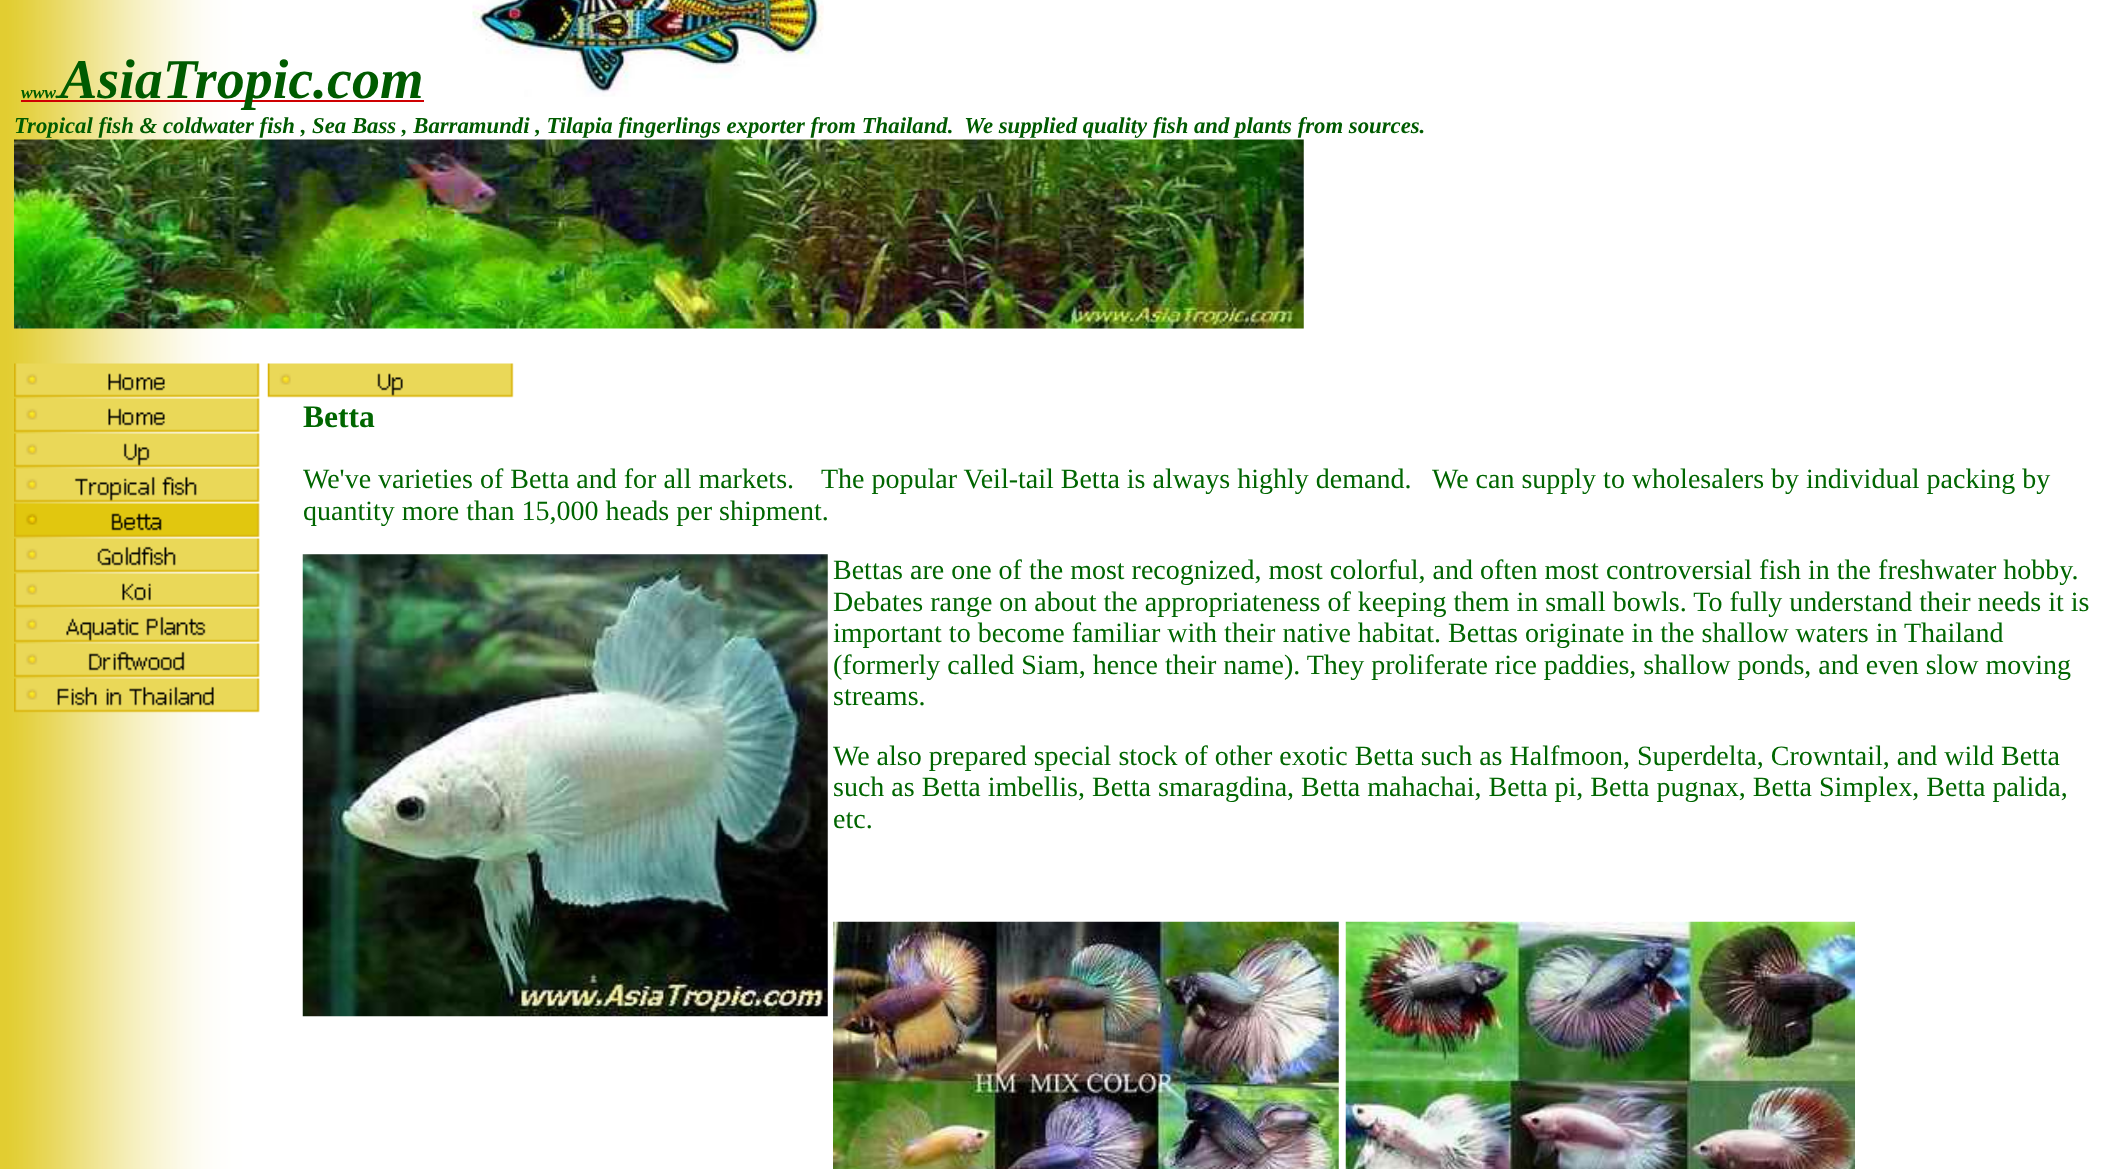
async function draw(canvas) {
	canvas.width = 2123;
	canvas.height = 1169;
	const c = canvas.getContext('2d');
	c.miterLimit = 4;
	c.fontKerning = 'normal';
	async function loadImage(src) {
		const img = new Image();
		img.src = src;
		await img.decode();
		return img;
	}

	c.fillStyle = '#fff';
	c.fillRect(0, 0, 2123, 1169);
	c.drawImage(await loadImage('img1.png'), 0, 0, 2123, 1169);
	c.font = 'italic bold 17.5px Liberation Serif';
	c.fillStyle = '#005b00';
	c.fillText('www.', 21, 98);
	c.fillStyle = '#cf0002';
	c.fillRect(21, 100, 403, 2);
	c.font = 'italic bold 56px Liberation Serif';
	c.fillStyle = '#005b00';
	c.fillText('AsiaTropic.com', 60, 98);
	c.drawImage(await loadImage('img2.png'), 472, 0, 352, 97);
	c.font = 'italic bold 22.75px Liberation Serif';
	c.fillText('Tropical fish & coldwater fish , Sea Bass , Barramundi , Tilapia fingerlings exporter from Thailand.  We supplied quality fish and plants from sources.', 14, 133);
	c.drawImage(await loadImage('img3.png'), 14, 139, 1290, 190);
	c.drawImage(await loadImage('img4.png'), 14, 363, 246, 35);
	c.drawImage(await loadImage('img5.png'), 267, 363, 247, 35);
	c.drawImage(await loadImage('img6.png'), 14, 398, 246, 35);
	c.drawImage(await loadImage('img7.png'), 14, 433, 246, 35);
	c.drawImage(await loadImage('img8.png'), 14, 468, 246, 35);
	c.drawImage(await loadImage('img9.png'), 14, 503, 246, 35);
	c.drawImage(await loadImage('img10.png'), 14, 538, 246, 35);
	c.drawImage(await loadImage('img11.png'), 14, 573, 246, 35);
	c.drawImage(await loadImage('img12.png'), 14, 608, 246, 35);
	c.drawImage(await loadImage('img13.png'), 14, 643, 246, 35);
	c.drawImage(await loadImage('img14.png'), 14, 678, 246, 35);
	c.font = 'bold 31.5px Liberation Serif';
	c.fillStyle = '#060';
	c.fillText('Betta', 303, 427);
	c.font = '28px Liberation Serif';
	for (const [text, x, y] of [
		['We\'ve varieties of Betta and for all markets.', 303, 488],
		['The popular Veil-tail Betta is always highly demand.   We can supply to wholesalers by individual packing by', 821, 488],
		['quantity more than 15,000 heads per shipment.', 303, 520],
	]) {
		c.fillText(text, x, y);
	}
	c.drawImage(await loadImage('img15.png'), 302, 554, 526, 463);
	for (const [text, x, y] of [
		['Bettas are one of the most recognized, most colorful, and often most controversial fish in the freshwater hobby.', 833, 579],
		['Debates range on about the appropriateness of keeping them in small bowls. To fully understand their needs it is', 833, 611],
		['important to become familiar with their native habitat. Bettas originate in the shallow waters in', 833, 642],
		['Thailand', 1904, 642],
		['(formerly called Siam, hence their name). They proliferate rice paddies, shallow ponds, and even slow moving', 833, 674],
		['streams.', 833, 705],
		['We also prepared special stock of other exotic Betta such as Halfmoon, Superdelta, Crowntail, and wild Betta', 833, 765],
		['such as Betta imbellis, Betta smaragdina, Betta mahachai, Betta pi, Betta pugnax, Betta Simplex, Betta palida,', 833, 796],
		['etc.', 833, 828],
	]) {
		c.fillText(text, x, y);
	}
	c.drawImage(await loadImage('img16.png'), 833, 921, 506, 248);
	c.drawImage(await loadImage('img17.png'), 1345, 921, 510, 248);
}

draw(document.querySelector('canvas'));
